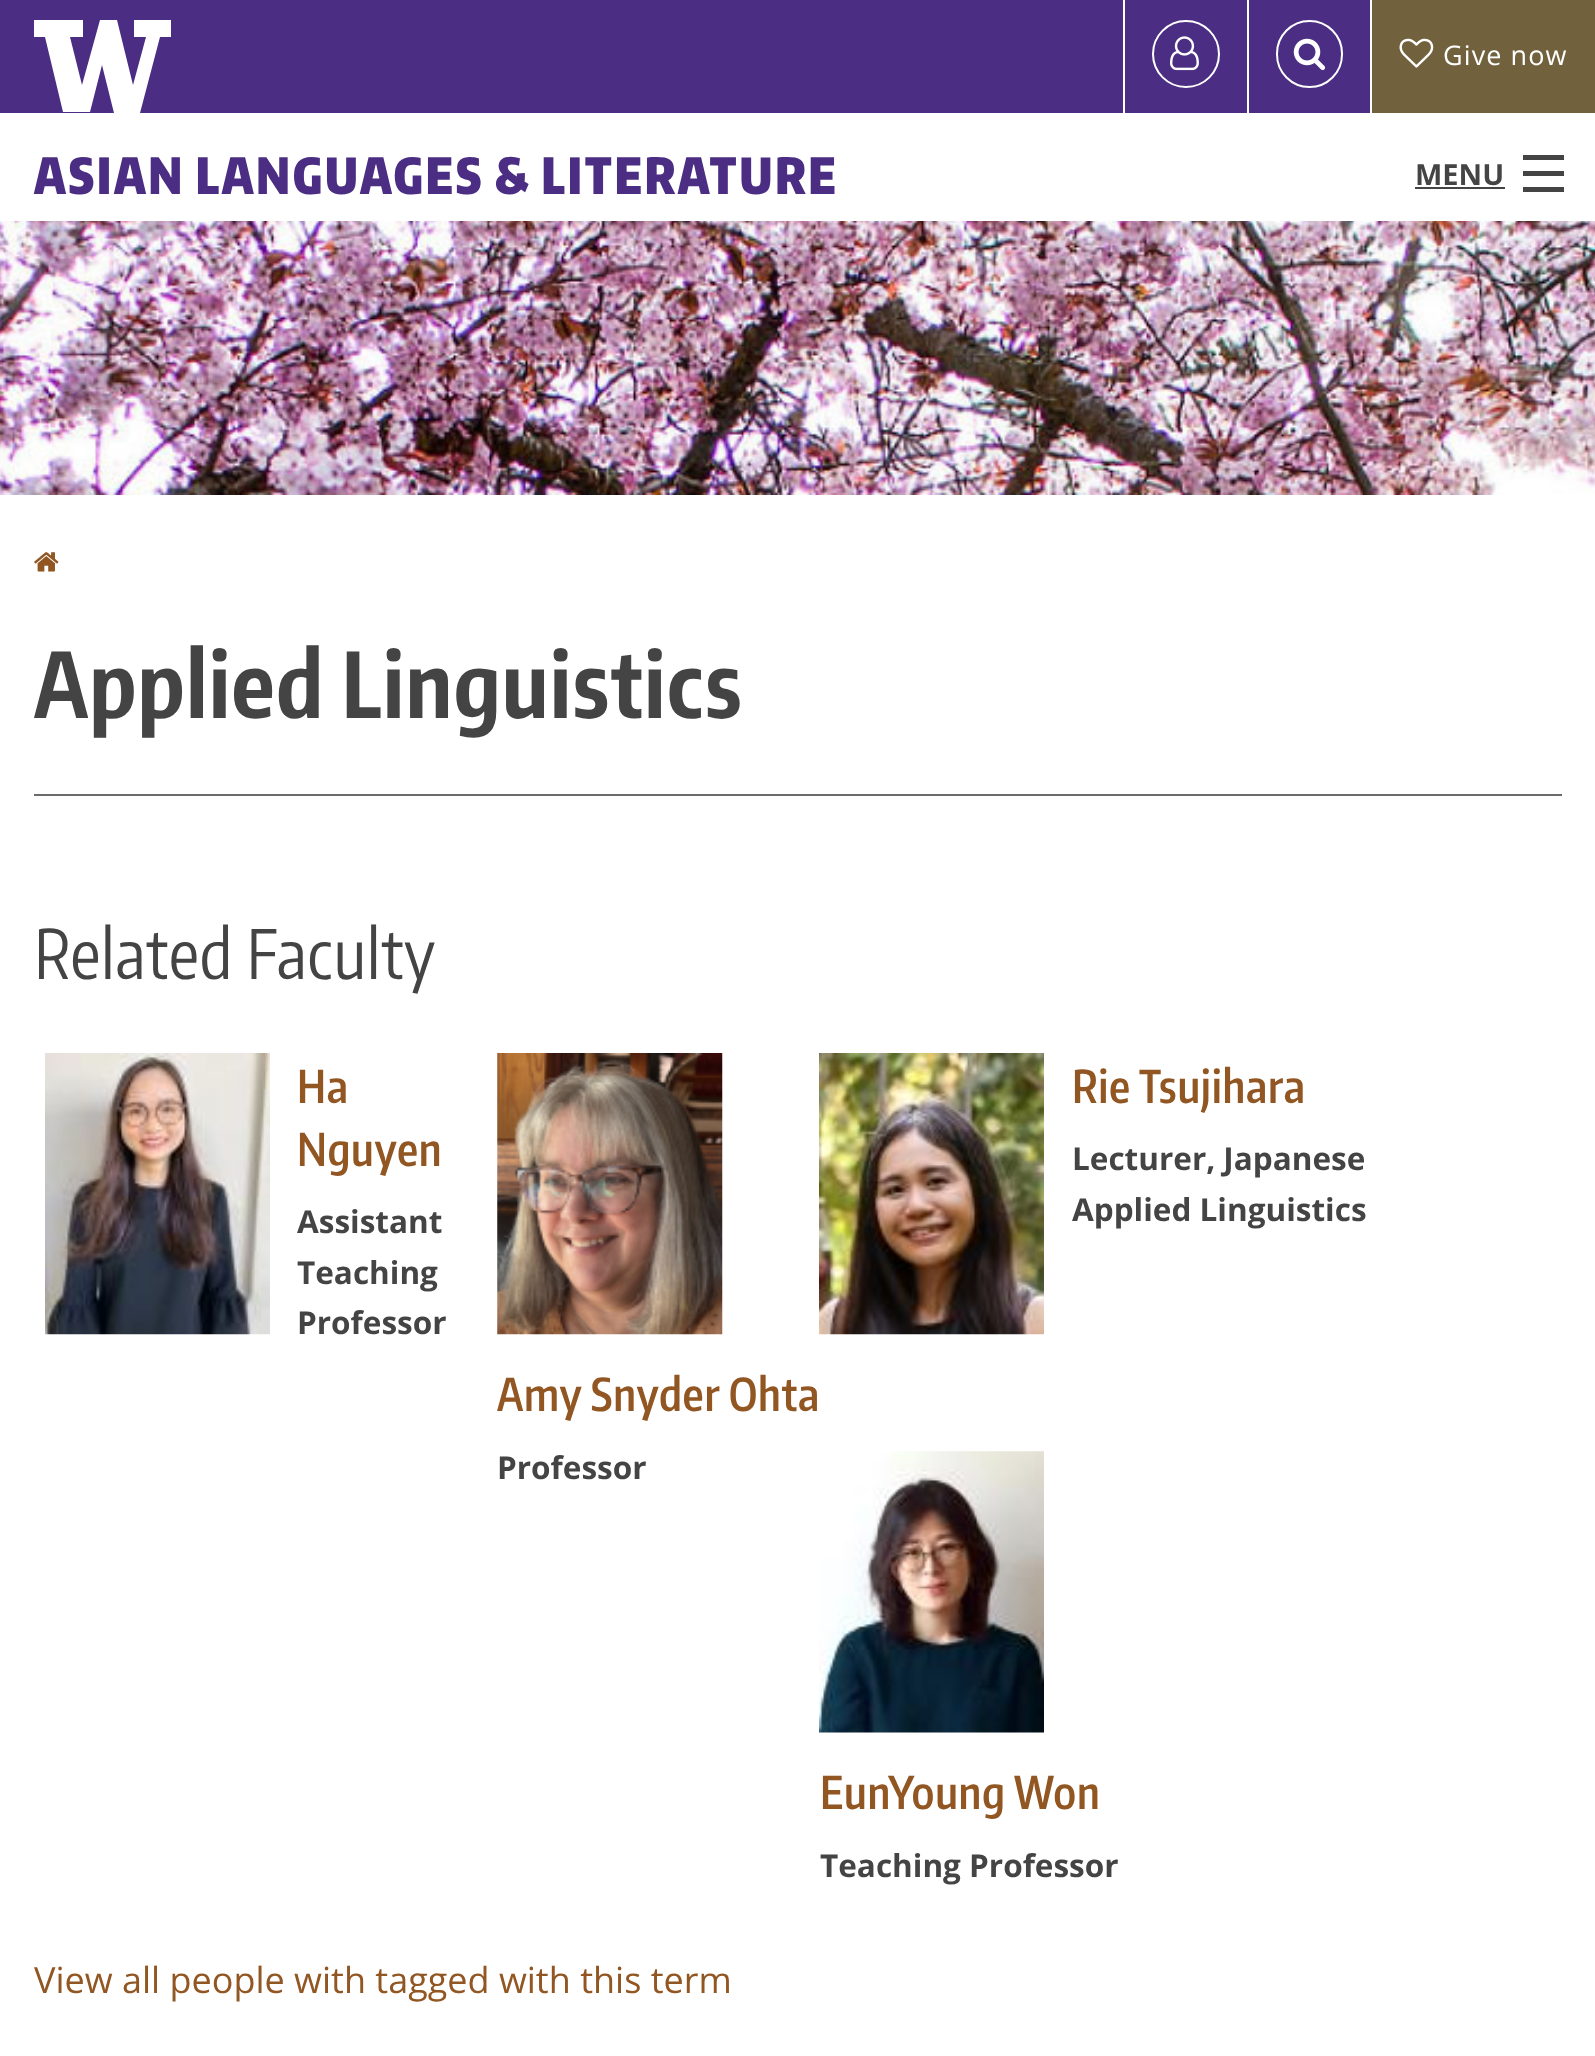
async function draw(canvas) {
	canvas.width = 1595;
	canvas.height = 2056;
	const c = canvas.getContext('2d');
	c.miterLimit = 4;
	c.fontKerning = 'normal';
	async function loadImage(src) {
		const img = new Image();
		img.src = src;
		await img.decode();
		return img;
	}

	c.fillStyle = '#fff';
	c.fillRect(0, 0, 1595, 2056);
	c.fillStyle = '#4b2e83';
	c.fillRect(0, 0, 1370, 113);
	c.fillStyle = '#fff';
	c.beginPath();
	c.moveTo(134, 20);
	c.lineTo(134, 37);
	c.lineTo(146, 37);
	c.lineTo(133, 85);
	c.lineTo(117, 20);
	c.lineTo(100, 20);
	c.lineTo(82, 85);
	c.lineTo(70, 37);
	c.lineTo(83, 37);
	c.lineTo(83, 20);
	c.lineTo(34, 20);
	c.lineTo(34, 37);
	c.lineTo(45, 37);
	c.lineTo(63, 112);
	c.lineTo(90, 112);
	c.lineTo(102, 65);
	c.lineTo(114, 113);
	c.lineTo(140, 113);
	c.lineTo(160, 37);
	c.lineTo(171, 37);
	c.lineTo(171, 20);
	c.closePath();
	c.fill();
	c.fillRect(1123, 0, 2, 113);
	c.beginPath();
	c.arc(1186, 54, 33, 0, 2 * Math.PI);
	c.strokeStyle = '#fff';
	c.lineWidth = 2;
	c.stroke();
	c.drawImage(await loadImage('img1.png'), 1170, 36, 29, 35);
	c.fillRect(1247, 0, 2, 113);
	c.beginPath();
	c.roundRect(1277, 21, 65, 66, 32.5);
	c.stroke();
	c.drawImage(await loadImage('img2.png'), 1293, 38, 33, 33);
	c.fillStyle = '#71623d';
	c.fillRect(1372, 0, 223, 113);
	c.drawImage(await loadImage('img3.png'), 1399, 38, 35, 30);
	c.letterSpacing = '1.1px';
	c.font = '27px Open Sans';
	c.fillStyle = '#fff';
	c.fillText('Give now', 1443, 65);
	c.letterSpacing = '2.5px';
	c.font = '900 49.5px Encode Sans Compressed';
	c.fillStyle = '#4b2e83';
	c.fillText('ASIAN LANGUAGES & LITERATURE', 34, 194);
	c.letterSpacing = '0px';
	c.font = 'bold 29px Open Sans';
	c.fillStyle = '#444';
	c.fillText('MENU', 1415, 185);
	for (const [x, y, w, h, color] of [
		[1415, 187, 90, 2, '#444'],
		[1523, 187, 41, 5, '#444'],
		[1523, 171, 41, 5, '#444'],
		[1523, 155, 41, 5, '#444'],
	]) {
		c.fillStyle = color;
		c.fillRect(x, y, w, h);
	}
	c.drawImage(await loadImage('img4.png'), 0, 221, 1595, 274);
	c.drawImage(await loadImage('img5.png'), 34, 552, 25, 20);
	c.letterSpacing = '1.1px';
	c.font = 'bold 90px Encode Sans Compressed';
	c.fillText('Applied Linguistics', 34, 718);
	c.fillStyle = '#6b6b6b';
	c.fillRect(34, 794, 1528, 2);
	c.letterSpacing = '0.7px';
	c.font = '67.5px Encode Sans Compressed';
	c.fillStyle = '#444';
	c.fillText('Related Faculty', 34, 979);
	c.drawImage(await loadImage('img6.png'), 45, 1053, 225, 282);
	c.font = '600 45px Encode Sans Compressed';
	c.fillStyle = '#915622';
	c.fillText('Ha', 297, 1103);
	c.fillText('Nguyen', 297, 1166);
	c.letterSpacing = '0px';
	c.font = 'bold 31.5px Open Sans';
	c.fillStyle = '#444';
	for (const [text, x, y] of [
		['Assistant', 297, 1233],
		['Teaching', 297, 1284],
		['Professor', 297, 1334],
	]) {
		c.fillText(text, x, y);
	}
	c.drawImage(await loadImage('img7.png'), 819, 1053, 225, 282);
	c.letterSpacing = '0.7px';
	c.font = '600 45px Encode Sans Compressed';
	c.fillStyle = '#915622';
	c.fillText('Rie Tsujihara', 1072, 1103);
	c.letterSpacing = '0px';
	c.font = 'bold 31.5px Open Sans';
	c.fillStyle = '#444';
	c.fillText('Lecturer, Japanese', 1072, 1170);
	c.fillText('Applied Linguistics', 1072, 1221);
	c.drawImage(await loadImage('img8.png'), 497, 1053, 226, 282);
	c.letterSpacing = '0.7px';
	c.font = '600 45px Encode Sans Compressed';
	c.fillStyle = '#915622';
	c.fillText('Amy Snyder Ohta', 497, 1411);
	c.letterSpacing = '0px';
	c.font = 'bold 31.5px Open Sans';
	c.fillStyle = '#444';
	c.fillText('Professor', 497, 1479);
	c.drawImage(await loadImage('img9.png'), 819, 1451, 225, 282);
	c.letterSpacing = '0.7px';
	c.font = '600 45px Encode Sans Compressed';
	c.fillStyle = '#915622';
	c.fillText('EunYoung Won', 820, 1809);
	c.letterSpacing = '0px';
	c.font = 'bold 31.5px Open Sans';
	c.fillStyle = '#444';
	c.fillText('Teaching Professor', 820, 1877);
	c.font = '36px Open Sans';
	c.fillStyle = '#915622';
	c.fillText('View all people with tagged with this term', 34, 1993);
}

draw(document.querySelector('canvas'));
